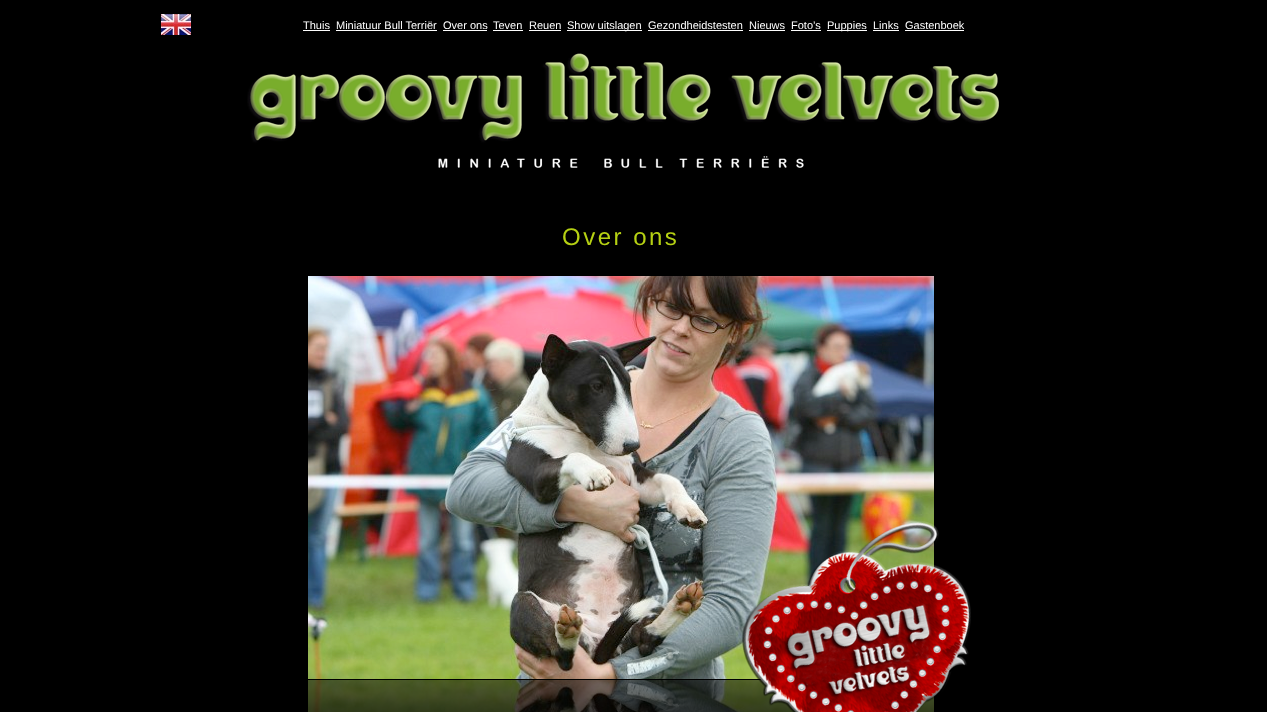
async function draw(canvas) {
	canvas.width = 1267;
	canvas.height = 712;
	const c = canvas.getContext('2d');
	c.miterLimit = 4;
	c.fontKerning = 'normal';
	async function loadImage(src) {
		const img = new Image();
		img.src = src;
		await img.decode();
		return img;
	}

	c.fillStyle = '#000';
	c.fillRect(0, 0, 1267, 712);
	c.drawImage(await loadImage('img1.png'), 161, 14, 30, 21);
	c.font = '11px Liberation Sans';
	c.fillStyle = '#fff';
	c.fillText('Thuis', 303, 29);
	c.fillRect(303, 30, 27, 1);
	c.fillText('Miniatuur Bull Terriër', 336, 29);
	c.fillRect(336, 30, 101, 1);
	c.fillText('Over ons', 443, 29);
	c.fillRect(443, 30, 44, 1);
	c.fillText('Teven', 493, 29);
	c.fillRect(493, 30, 30, 1);
	c.fillText('Reuen', 529, 29);
	c.fillRect(529, 30, 32, 1);
	c.fillRect(567, 30, 75, 1);
	c.fillText('Show uitslagen', 567, 29);
	c.fillText('Gezondheidstesten', 648, 29);
	c.fillRect(648, 30, 95, 1);
	c.fillText('Nieuws', 749, 29);
	c.fillRect(749, 30, 36, 1);
	c.fillText('Foto’s', 791, 29);
	c.fillRect(791, 30, 30, 1);
	c.fillRect(827, 30, 40, 1);
	c.fillText('Puppies', 827, 29);
	c.fillText('Links', 873, 29);
	c.fillRect(873, 30, 26, 1);
	c.fillText('Gastenboek', 905, 29);
	c.fillRect(905, 30, 59, 1);
	c.drawImage(await loadImage('img2.png'), 247, 53, 752, 115);
	c.letterSpacing = '2.5px';
	c.font = '24px Liberation Sans';
	c.fillStyle = '#b6d113';
	c.fillText('Over ons', 562, 245);
	c.drawImage(await loadImage('img3.png'), 308, 276, 626, 403);
	c.drawImage(await loadImage('img4.png'), 308, 680, 626, 32);
	c.drawImage(await loadImage('img5.png'), 742, 521, 229, 191);
}

draw(document.querySelector('canvas'));
